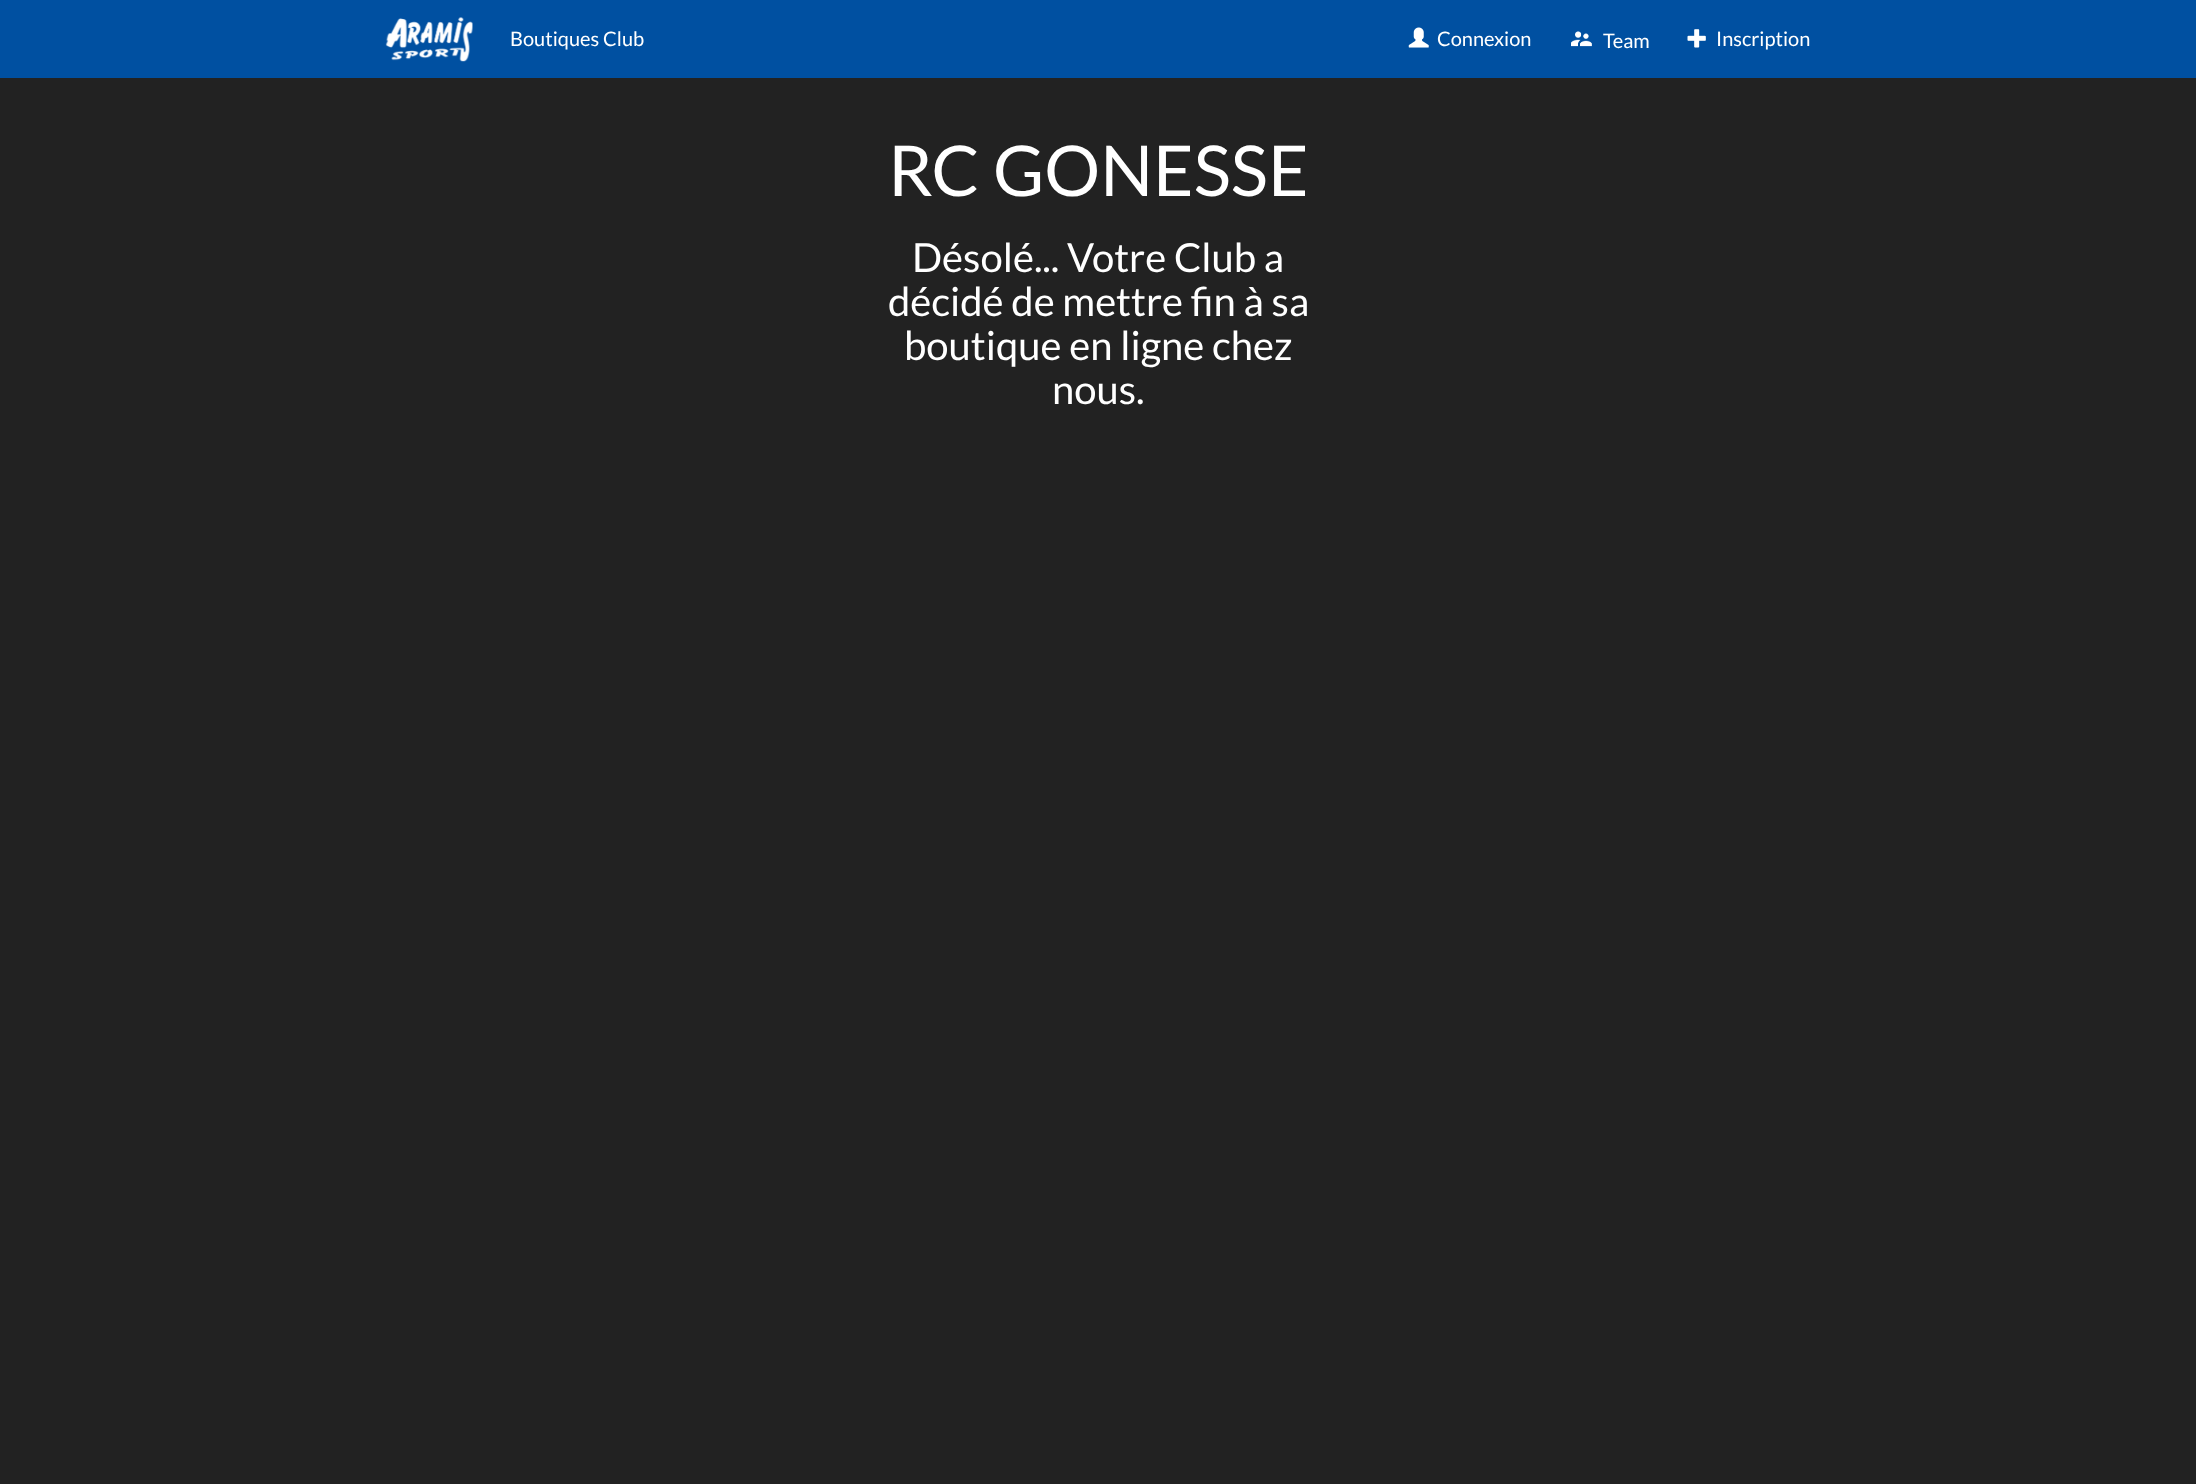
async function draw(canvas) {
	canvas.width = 2196;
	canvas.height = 1484;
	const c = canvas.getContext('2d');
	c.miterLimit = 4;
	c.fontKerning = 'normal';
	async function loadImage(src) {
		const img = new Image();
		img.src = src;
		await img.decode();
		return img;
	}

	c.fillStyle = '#222';
	c.fillRect(0, 0, 2196, 1484);
	c.fillStyle = '#0050a1';
	c.fillRect(0, 0, 2196, 78);
	c.drawImage(await loadImage('img1.png'), 385, 17, 88, 45);
	c.font = '20px Lato';
	c.fillStyle = '#fff';
	c.fillText('Boutiques Club', 510, 46);
	c.drawImage(await loadImage('img2.png'), 1408, 27, 21, 21);
	c.fillText('Connexion', 1437, 46);
	c.drawImage(await loadImage('img3.png'), 1571, 31, 21, 16);
	c.fillText('Team', 1603, 48);
	c.drawImage(await loadImage('img4.png'), 1687, 29, 19, 19);
	c.fillText('Inscription', 1716, 46);
	c.font = '70px Lato';
	c.fillText('RC GONESSE', 888, 196);
	c.font = '40px Lato';
	for (const [text, x, y] of [
		['Désolé... Votre Club a', 912, 272],
		['décidé de mettre fin à sa', 888, 316],
		['boutique en ligne chez', 904, 360],
		['nous.', 1052, 404],
	]) {
		c.fillText(text, x, y);
	}
}

draw(document.querySelector('canvas'));
